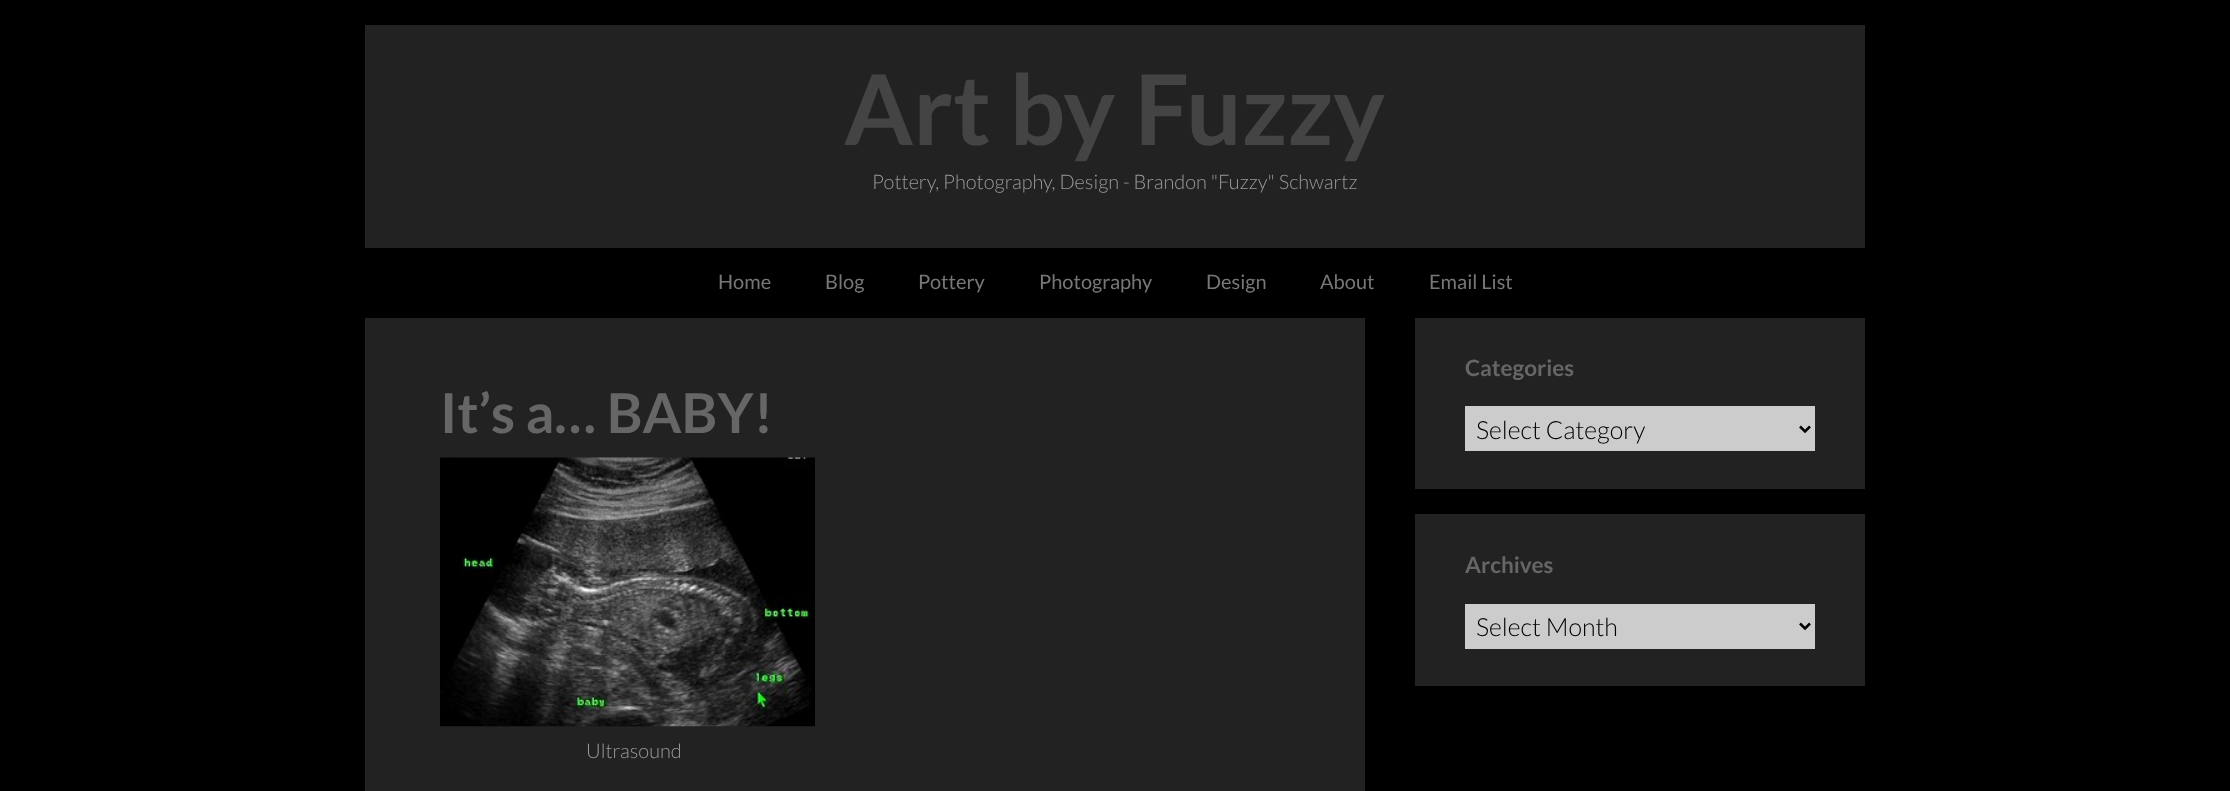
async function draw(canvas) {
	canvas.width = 2230;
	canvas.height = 791;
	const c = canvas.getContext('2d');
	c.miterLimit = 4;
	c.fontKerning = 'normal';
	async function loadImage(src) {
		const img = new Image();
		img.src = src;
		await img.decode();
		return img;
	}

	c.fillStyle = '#000';
	c.fillRect(0, 0, 2230, 791);
	c.fillStyle = '#222';
	c.fillRect(365, 25, 1500, 223);
	c.font = 'bold 97.5px Lato';
	c.fillStyle = '#444';
	c.fillText('Art by Fuzzy', 844, 145);
	c.font = '300 20px Lato';
	c.fillStyle = '#999';
	c.fillText('Pottery, Photography, Design - Brandon "Fuzzy" Schwartz', 872, 189);
	c.font = '20px Lato';
	c.fillStyle = '#777';
	for (const [text, x, y] of [
		['Home', 718, 289],
		['Blog', 825, 289],
		['Pottery', 918, 289],
		['Photography', 1039, 289],
		['Design', 1206, 289],
		['About', 1320, 289],
		['Email List', 1429, 289],
	]) {
		c.fillText(text, x, y);
	}
	c.fillStyle = '#222';
	c.fillRect(365, 318, 1000, 473);
	c.font = 'bold 55px Lato';
	c.fillStyle = '#666';
	c.fillText('It’s a… BABY!', 440, 433);
	c.drawImage(await loadImage('img1.png'), 440, 457, 375, 270);
	c.font = '300 20px Lato';
	c.fillStyle = '#999';
	c.fillText('Ultrasound', 586, 758);
	c.fillStyle = '#222';
	c.fillRect(1415, 318, 450, 171);
	c.font = 'bold 22.5px Lato';
	c.fillStyle = '#666';
	c.fillText('Categories', 1465, 376);
	c.fillStyle = '#ccc';
	c.fillRect(1465, 406, 350, 45);
	c.beginPath();
	c.moveTo(1800, 426.5);
	c.lineTo(1805, 431.5);
	c.lineTo(1810, 426.5);
	c.strokeStyle = '#000';
	c.lineWidth = 2.5;
	c.stroke();
	c.font = '300 25px Lato';
	c.fillStyle = '#000';
	c.fillText('Select Category', 1476, 439);
	c.fillStyle = '#222';
	c.fillRect(1415, 514, 450, 172);
	c.font = 'bold 22.5px Lato';
	c.fillStyle = '#666';
	c.fillText('Archives', 1465, 573);
	c.fillStyle = '#ccc';
	c.fillRect(1465, 604, 350, 45);
	c.beginPath();
	c.moveTo(1800, 623.5);
	c.lineTo(1805, 628.5);
	c.lineTo(1810, 623.5);
	c.stroke();
	c.font = '300 25px Lato';
	c.fillStyle = '#000';
	c.fillText('Select Month', 1476, 636);
}

draw(document.querySelector('canvas'));
